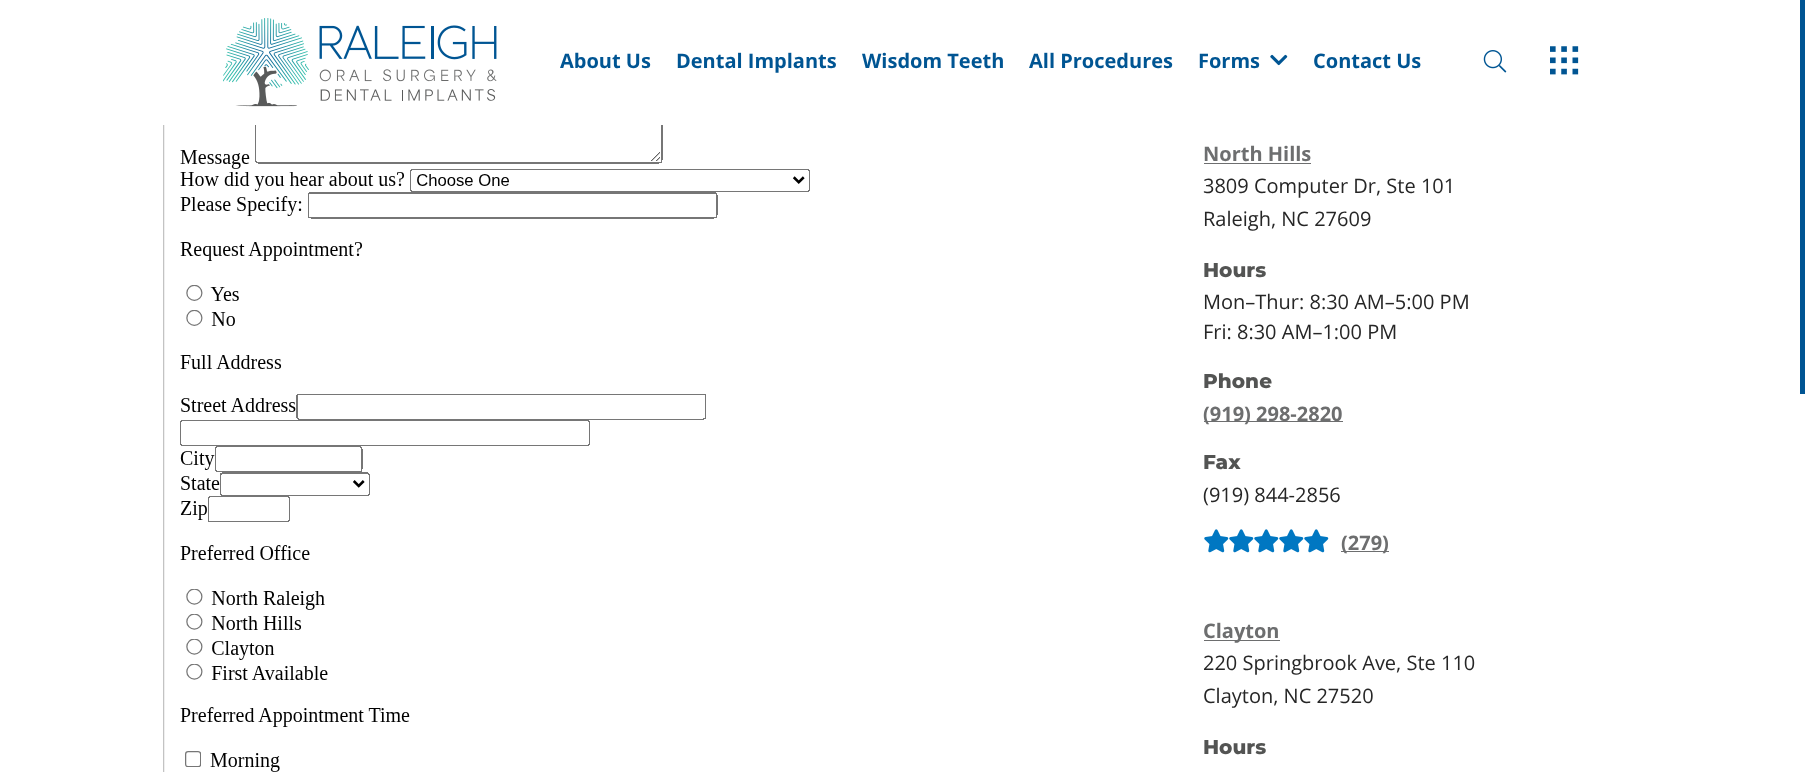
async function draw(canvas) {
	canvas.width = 1805;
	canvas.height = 772;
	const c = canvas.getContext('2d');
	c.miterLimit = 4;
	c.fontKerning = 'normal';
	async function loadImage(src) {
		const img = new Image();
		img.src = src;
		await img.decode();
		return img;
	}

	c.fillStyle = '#fff';
	c.fillRect(0, 0, 1805, 772);
	c.drawImage(await loadImage('img1.png'), 223, 18, 274, 89);
	c.font = 'bold 20px Open Sans';
	c.fillStyle = '#005593';
	for (const [text, x, y] of [
		['About Us', 560, 68],
		['Dental Implants', 676, 68],
		['Wisdom Teeth', 862, 68],
		['All Procedures', 1029, 68],
		['Forms', 1198, 68],
	]) {
		c.fillText(text, x, y);
	}
	c.drawImage(await loadImage('img2.png'), 1270, 54, 18, 12);
	c.fillText('Contact Us', 1313, 68);
	c.drawImage(await loadImage('img3.png'), 1483, 50, 24, 23);
	c.drawImage(await loadImage('img4.png'), 1550, 46, 29, 29);
	c.drawImage(await loadImage('img5.png'), 163, 125, 647, 647);
	c.fillStyle = '#6d6e6f';
	c.fillText('North Hills', 1203, 161);
	c.fillRect(1204, 163, 107, 1);
	c.font = '20px Open Sans';
	c.fillStyle = '#262626';
	c.fillText('3809 Computer Dr, Ste 101', 1203, 193);
	c.fillText('Raleigh, NC 27609', 1203, 226);
	c.font = '100 20px Montserrat';
	c.fillStyle = '#535453';
	c.fillText('Hours', 1203, 277);
	c.font = '20px Open Sans';
	c.fillStyle = '#262626';
	c.fillText('Mon–Thur: 8:30 AM–5:00 PM', 1203, 309);
	c.fillText('Fri: 8:30 AM–1:00 PM', 1203, 339);
	c.font = '100 20px Montserrat';
	c.fillStyle = '#535453';
	c.fillText('Phone', 1203, 388);
	c.fillStyle = '#6d6e6f';
	c.fillRect(1204, 421, 139, 1);
	c.font = 'bold 20px Open Sans';
	c.fillText('(919) 298-2820', 1203, 421);
	c.font = '100 20px Montserrat';
	c.fillStyle = '#535453';
	c.fillText('Fax', 1203, 469);
	c.font = '20px Open Sans';
	c.fillStyle = '#262626';
	c.fillText('(919) 844-2856', 1203, 502);
	c.drawImage(await loadImage('img6.png'), 1204, 529, 25, 24);
	c.drawImage(await loadImage('img6.png'), 1229, 529, 25, 24);
	c.drawImage(await loadImage('img6.png'), 1254, 529, 25, 24);
	c.drawImage(await loadImage('img6.png'), 1279, 529, 25, 24);
	c.drawImage(await loadImage('img6.png'), 1304, 529, 25, 24);
	c.fillStyle = '#6d6e6f';
	c.fillRect(1341, 551, 48, 1);
	c.font = 'bold 20px Open Sans';
	c.fillText('(279)', 1341, 550);
	c.fillRect(1204, 640, 76, 1);
	c.fillText('Clayton', 1203, 638);
	c.font = '20px Open Sans';
	c.fillStyle = '#262626';
	c.fillText('220 Springbrook Ave, Ste 110', 1203, 670);
	c.fillText('Clayton, NC 27520', 1203, 703);
	c.font = '100 20px Montserrat';
	c.fillStyle = '#535453';
	c.fillText('Hours', 1203, 754);
	c.fillStyle = '#005593';
	c.fillRect(1800, 0, 5, 394);
}

draw(document.querySelector('canvas'));
